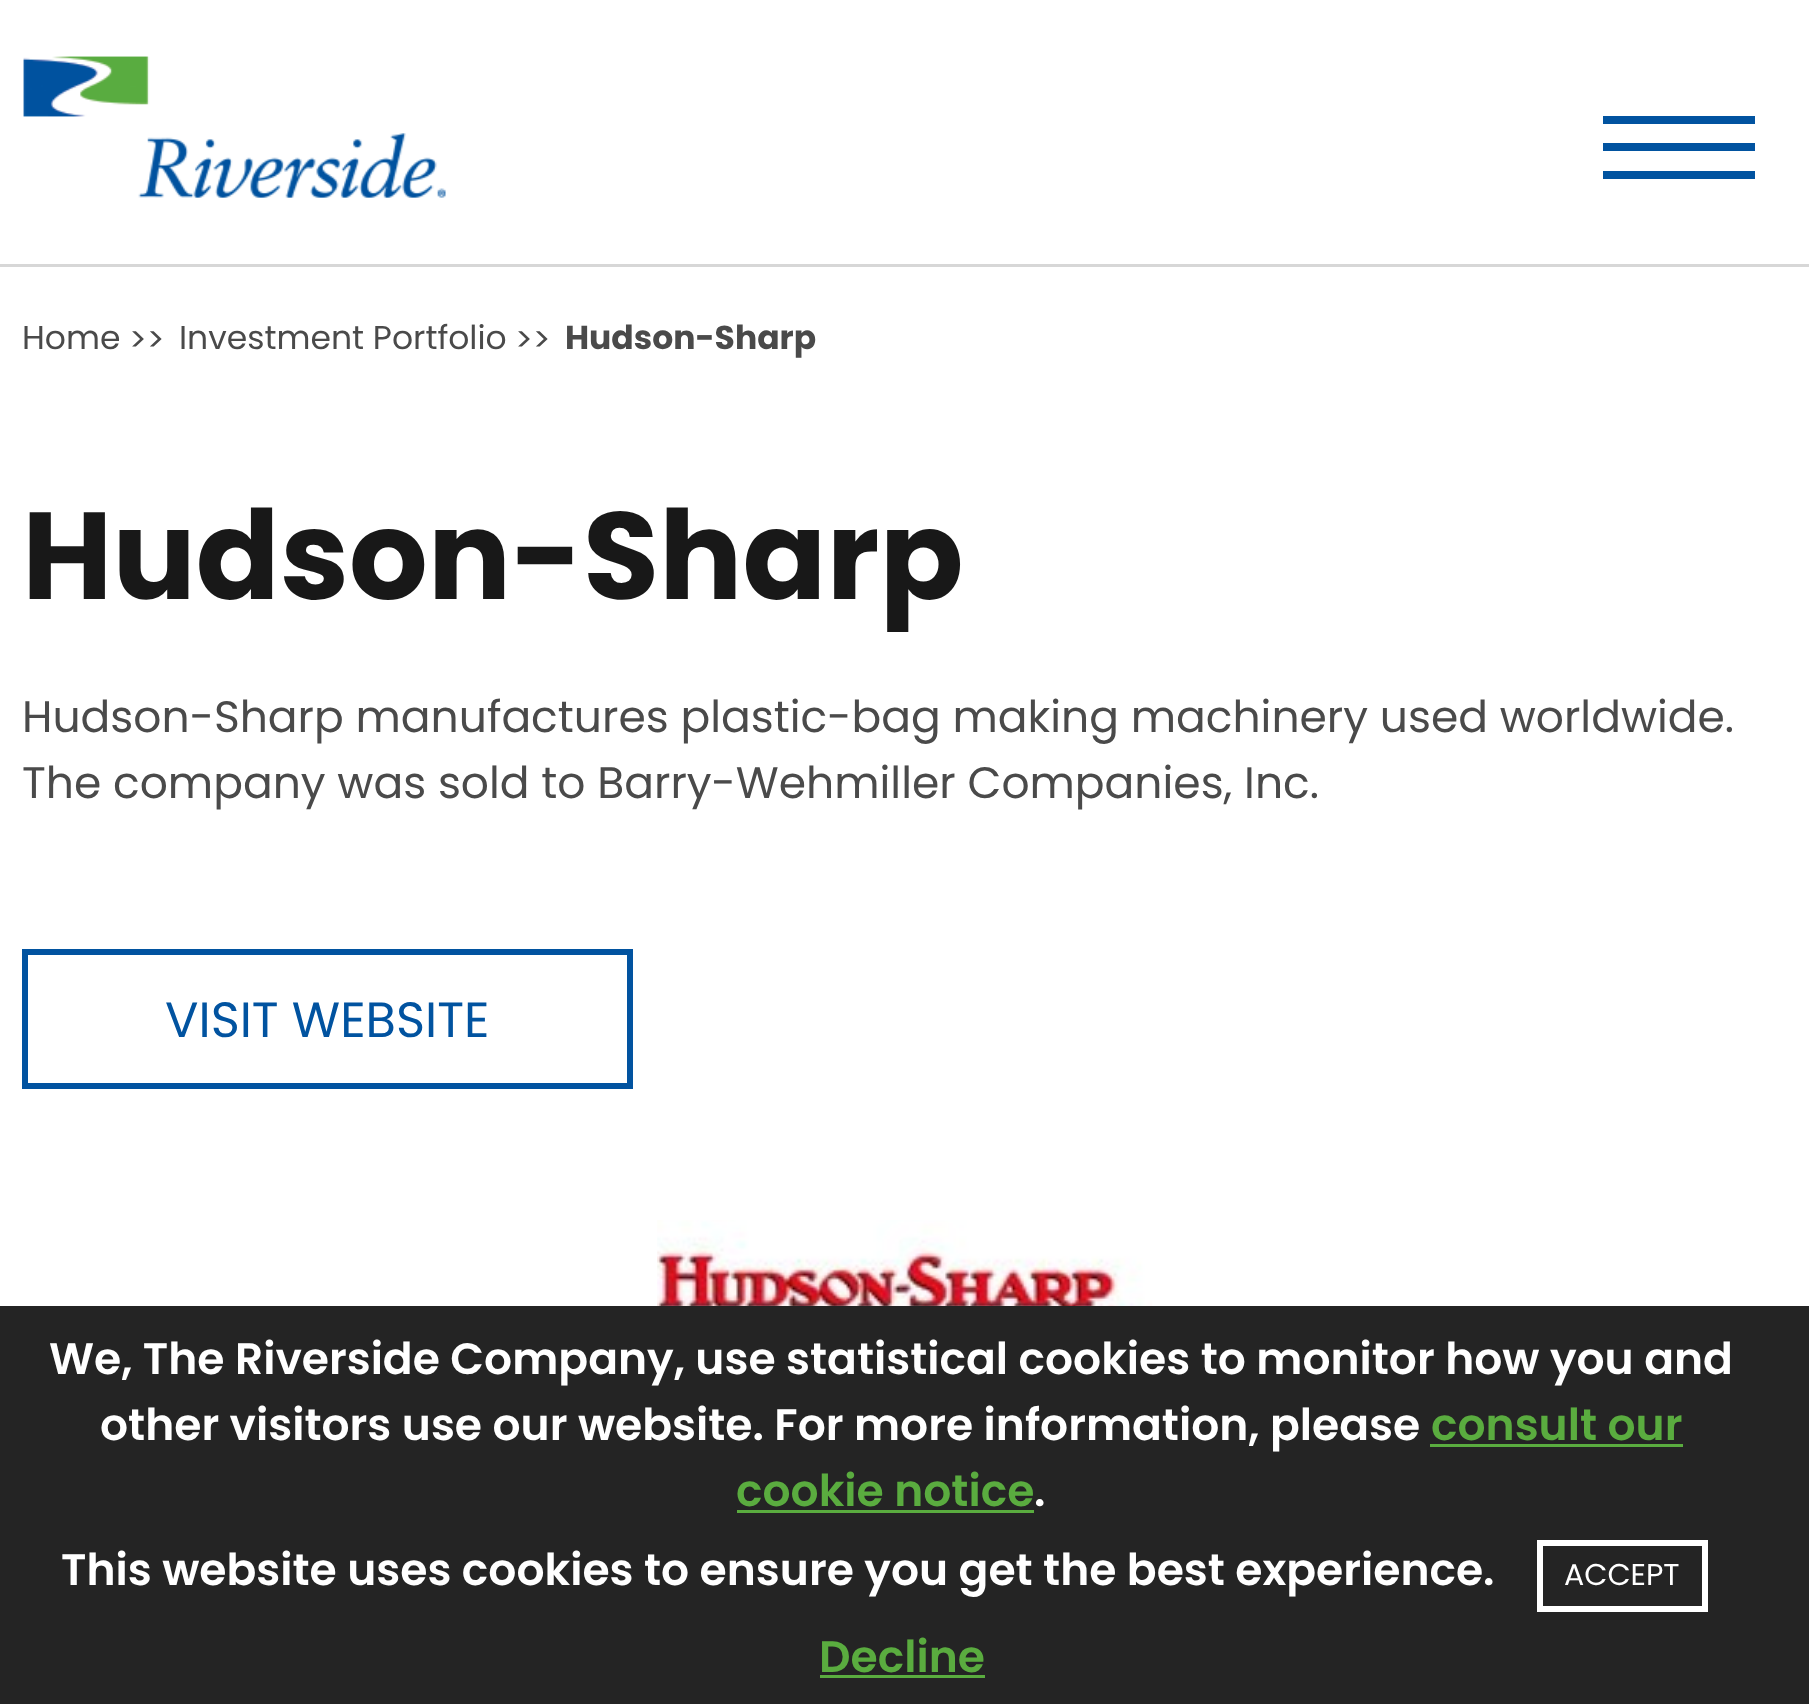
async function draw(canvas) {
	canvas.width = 1809;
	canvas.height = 1704;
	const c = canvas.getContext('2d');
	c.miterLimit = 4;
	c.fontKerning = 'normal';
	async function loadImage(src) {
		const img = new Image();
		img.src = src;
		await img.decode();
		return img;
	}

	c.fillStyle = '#fff';
	c.fillRect(0, 0, 1809, 1704);
	c.fillStyle = '#d7d7d7';
	c.fillRect(0, 264, 1809, 3);
	c.drawImage(await loadImage('img1.png'), 23, 56, 423, 142);
	for (const [x, y, w, h, color] of [
		[1603, 116, 152, 8, '#0153a0'],
		[1603, 143, 152, 8, '#0153a0'],
		[1603, 171, 152, 8, '#0153a0'],
	]) {
		c.fillStyle = color;
		c.fillRect(x, y, w, h);
	}
	c.font = '33px Poppins';
	c.fillStyle = '#4a4a4a';
	for (const [text, x, y] of [
		['Home', 22, 349],
		['>>', 129, 351],
		['Investment Portfolio', 179, 349],
		['>>', 515, 351],
	]) {
		c.fillText(text, x, y);
	}
	c.font = 'bold 33px Poppins';
	c.fillText('Hudson-Sharp', 565, 349);
	c.font = 'bold 123.75px Poppins';
	c.fillStyle = '#181818';
	c.fillText('Hudson-Sharp', 22, 599);
	c.font = '44px Poppins';
	c.fillStyle = '#4a4a4a';
	c.fillText('Hudson-Sharp manufactures plastic-bag making machinery used worldwide.', 22, 732);
	c.fillText('The company was sold to Barry-Wehmiller Companies, Inc.', 22, 798);
	c.strokeStyle = '#0153a0';
	c.lineWidth = 6;
	c.strokeRect(25, 952, 605, 134);
	c.font = '49.5px Poppins';
	c.fillStyle = '#0153a0';
	c.fillText('VISIT WEBSITE', 165, 1037);
	c.drawImage(await loadImage('img2.png'), 657, 1220, 496, 86);
	c.fillStyle = '#242424';
	c.fillRect(0, 1306, 1809, 398);
	c.font = '600 44px Poppins';
	c.fillStyle = '#fff';
	c.fillText('We, The Riverside Company, use statistical cookies to monitor how you and', 49, 1374);
	c.fillText('other visitors use our website. For more information, please', 100, 1440);
	c.fillStyle = '#5aac3f';
	c.fillText('consult our', 1431, 1440);
	c.fillRect(1430, 1444, 253, 3);
	c.fillText('cookie notice', 736, 1506);
	c.fillRect(737, 1510, 297, 3);
	c.fillStyle = '#fff';
	c.fillText('.', 1034, 1506);
	c.fillText('This website uses cookies to ensure you get the best experience.', 61, 1585);
	c.strokeStyle = '#fff';
	c.strokeRect(1540, 1543, 165, 66);
	c.font = '30px Poppins';
	c.fillText('ACCEPT', 1564, 1585);
	c.font = '600 44px Poppins';
	c.fillStyle = '#5aac3f';
	c.fillText('Decline', 819, 1672);
	c.fillRect(820, 1675, 165, 3);
}

draw(document.querySelector('canvas'));
